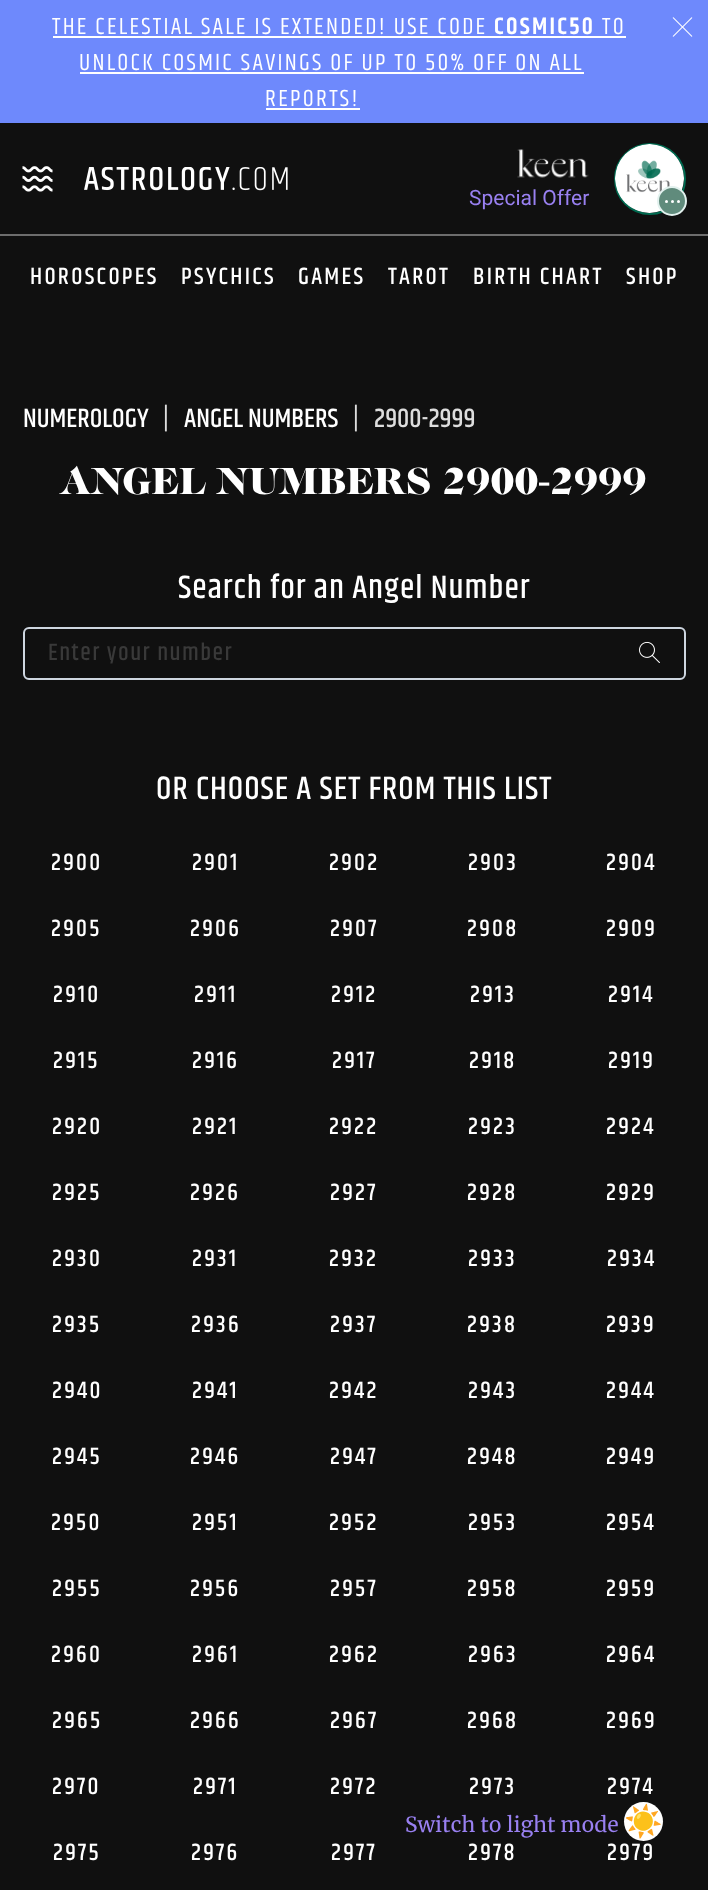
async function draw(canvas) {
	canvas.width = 708;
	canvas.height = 1890;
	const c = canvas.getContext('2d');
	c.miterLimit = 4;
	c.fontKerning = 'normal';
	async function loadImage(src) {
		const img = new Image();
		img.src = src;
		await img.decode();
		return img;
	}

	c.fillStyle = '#101010';
	c.fillRect(0, 0, 708, 1890);
	c.fillStyle = '#6e89fc';
	c.fillRect(0, 0, 708, 123);
	c.letterSpacing = '2.25px';
	c.font = '24px Khand';
	c.fillStyle = '#fff';
	c.fillText('THE CELESTIAL SALE IS EXTENDED! USE CODE', 52, 34);
	c.fillRect(53, 36, 573, 2);
	c.font = '600 24px Khand';
	c.fillText('COSMIC50', 494, 34);
	c.font = '24px Khand';
	c.fillText('TO', 602, 34);
	c.drawImage(await loadImage('img1.png'), 672, 17, 21, 20);
	c.fillText('UNLOCK COSMIC SAVINGS OF UP TO 50% OFF ON ALL', 79, 70);
	c.fillRect(80, 72, 504, 2);
	c.fillText('REPORTS!', 265, 106);
	c.fillRect(266, 108, 94, 2);
	c.fillStyle = '#6d6d6d';
	c.fillRect(0, 234, 708, 2);
	c.drawImage(await loadImage('img2.png'), 22, 166, 31, 26);
	c.drawImage(await loadImage('img3.png'), 84, 167, 204, 24);
	c.drawImage(await loadImage('img4.png'), 517, 149, 72, 29);
	c.letterSpacing = '0px';
	c.font = '21px Roboto';
	c.fillStyle = '#9980f1';
	c.fillText('Special Offer', 469, 205);
	c.beginPath();
	c.arc(650, 179, 35, 0, 2 * Math.PI);
	c.strokeStyle = '#006a50';
	c.lineWidth = 2;
	c.stroke();
	c.drawImage(await loadImage('img5.png'), 615, 144, 69, 69);
	c.fillStyle = '#608b7c';
	c.beginPath();
	c.arc(672, 201, 14, 0, 2 * Math.PI);
	c.fill();
	c.strokeStyle = '#e2f1ee';
	c.stroke();
	c.fillStyle = '#fff';
	c.beginPath();
	c.arc(666.5, 201.5, 1.5, 0, 2 * Math.PI);
	c.fill();
	c.beginPath();
	c.arc(672.5, 201.5, 1.5, 0, 2 * Math.PI);
	c.fill();
	c.beginPath();
	c.arc(678.5, 201.5, 1.5, 0, 2 * Math.PI);
	c.fill();
	c.letterSpacing = '2.25px';
	c.font = '500 24px Khand';
	for (const [text, x, y] of [
		['HOROSCOPES', 30, 284],
		['PSYCHICS', 181, 284],
		['GAMES', 298, 284],
		['TAROT', 388, 284],
		['BIRTH CHART', 473, 284],
		['SHOP', 626, 284],
	]) {
		c.fillText(text, x, y);
	}
	c.letterSpacing = '0px';
	c.font = '500 27px Khand';
	c.fillText('NUMEROLOGY', 23, 427);
	c.fillStyle = '#ddd';
	c.fillText('|', 163, 427);
	c.fillStyle = '#fff';
	c.fillText('ANGEL NUMBERS', 184, 427);
	c.fillStyle = '#ddd';
	c.fillText('|', 353, 427);
	c.fillText('2900-2999', 374, 427);
	c.letterSpacing = '0.8px';
	c.font = '39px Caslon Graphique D';
	c.fillStyle = '#fff';
	c.fillText('ANGEL NUMBERS 2900-2999', 60, 494);
	c.letterSpacing = '1px';
	c.font = '500 33px Khand';
	c.fillText('Search for an Angel Number', 178, 598);
	c.beginPath();
	c.roundRect(24, 628, 661, 51, 5);
	c.strokeStyle = '#ced6e0';
	c.stroke();
	c.letterSpacing = '1.5px';
	c.font = '500 24px Khand';
	c.fillStyle = '#393939';
	c.fillText('Enter your number', 48, 660);
	c.drawImage(await loadImage('img6.png'), 639, 641, 21, 22);
	c.letterSpacing = '1px';
	c.font = '500 33px Khand';
	c.fillStyle = '#fff';
	c.fillText('OR CHOOSE A SET FROM THIS LIST', 156, 799);
	c.letterSpacing = '2.25px';
	c.font = '500 24px Khand';
	for (const [text, x, y] of [
		['2900', 51, 870],
		['2901', 192, 870],
		['2902', 329, 870],
		['2903', 468, 870],
		['2904', 606, 870],
		['2905', 51, 936],
		['2906', 190, 936],
		['2907', 330, 936],
		['2908', 467, 936],
		['2909', 606, 936],
		['2910', 53, 1002],
		['2911', 194, 1002],
		['2912', 331, 1002],
		['2913', 470, 1002],
		['2914', 608, 1002],
		['2915', 53, 1068],
		['2916', 192, 1068],
		['2917', 332, 1068],
		['2918', 469, 1068],
		['2919', 608, 1068],
		['2920', 52, 1134],
		['2921', 192, 1134],
		['2922', 329, 1134],
		['2923', 468, 1134],
		['2924', 606, 1134],
		['2925', 52, 1200],
		['2926', 190, 1200],
		['2927', 330, 1200],
		['2928', 467, 1200],
		['2929', 606, 1200],
		['2930', 52, 1266],
		['2931', 192, 1266],
		['2932', 329, 1266],
		['2933', 468, 1266],
		['2934', 607, 1266],
		['2935', 52, 1332],
		['2936', 191, 1332],
		['2937', 330, 1332],
		['2938', 467, 1332],
		['2939', 606, 1332],
		['2940', 52, 1398],
		['2941', 192, 1398],
		['2942', 329, 1398],
		['2943', 468, 1398],
		['2944', 606, 1398],
		['2945', 52, 1464],
		['2946', 190, 1464],
		['2947', 330, 1464],
		['2948', 467, 1464],
		['2949', 606, 1464],
		['2950', 51, 1530],
		['2951', 192, 1530],
		['2952', 329, 1530],
		['2953', 468, 1530],
		['2954', 606, 1530],
		['2955', 52, 1596],
		['2956', 190, 1596],
		['2957', 330, 1596],
		['2958', 467, 1596],
		['2959', 606, 1596],
		['2960', 51, 1662],
		['2961', 192, 1662],
		['2962', 329, 1662],
		['2963', 468, 1662],
		['2964', 606, 1662],
		['2965', 52, 1728],
		['2966', 190, 1728],
		['2967', 330, 1728],
		['2968', 467, 1728],
		['2969', 606, 1728],
		['2970', 52, 1794],
		['2971', 193, 1794],
		['2972', 330, 1794],
		['2973', 469, 1794],
		['2974', 607, 1794],
		['2975', 53, 1860],
		['2976', 191, 1860],
		['2977', 331, 1860],
		['2978', 468, 1860],
		['2979', 607, 1860],
	]) {
		c.fillText(text, x, y);
	}
	c.letterSpacing = '0px';
	c.font = '21px Merriweather';
	c.fillStyle = '#9980f1';
	c.fillText('Switch to light mode', 405, 1832);
	c.fillStyle = '#fff';
	c.beginPath();
	c.arc(643.5, 1821.5, 19.5, 0, 2 * Math.PI);
	c.fill();
	c.font = '31px Noto Color Emoji';
	c.fillStyle = '#000';
	c.fillText('☀️', 624, 1832);
}

draw(document.querySelector('canvas'));
